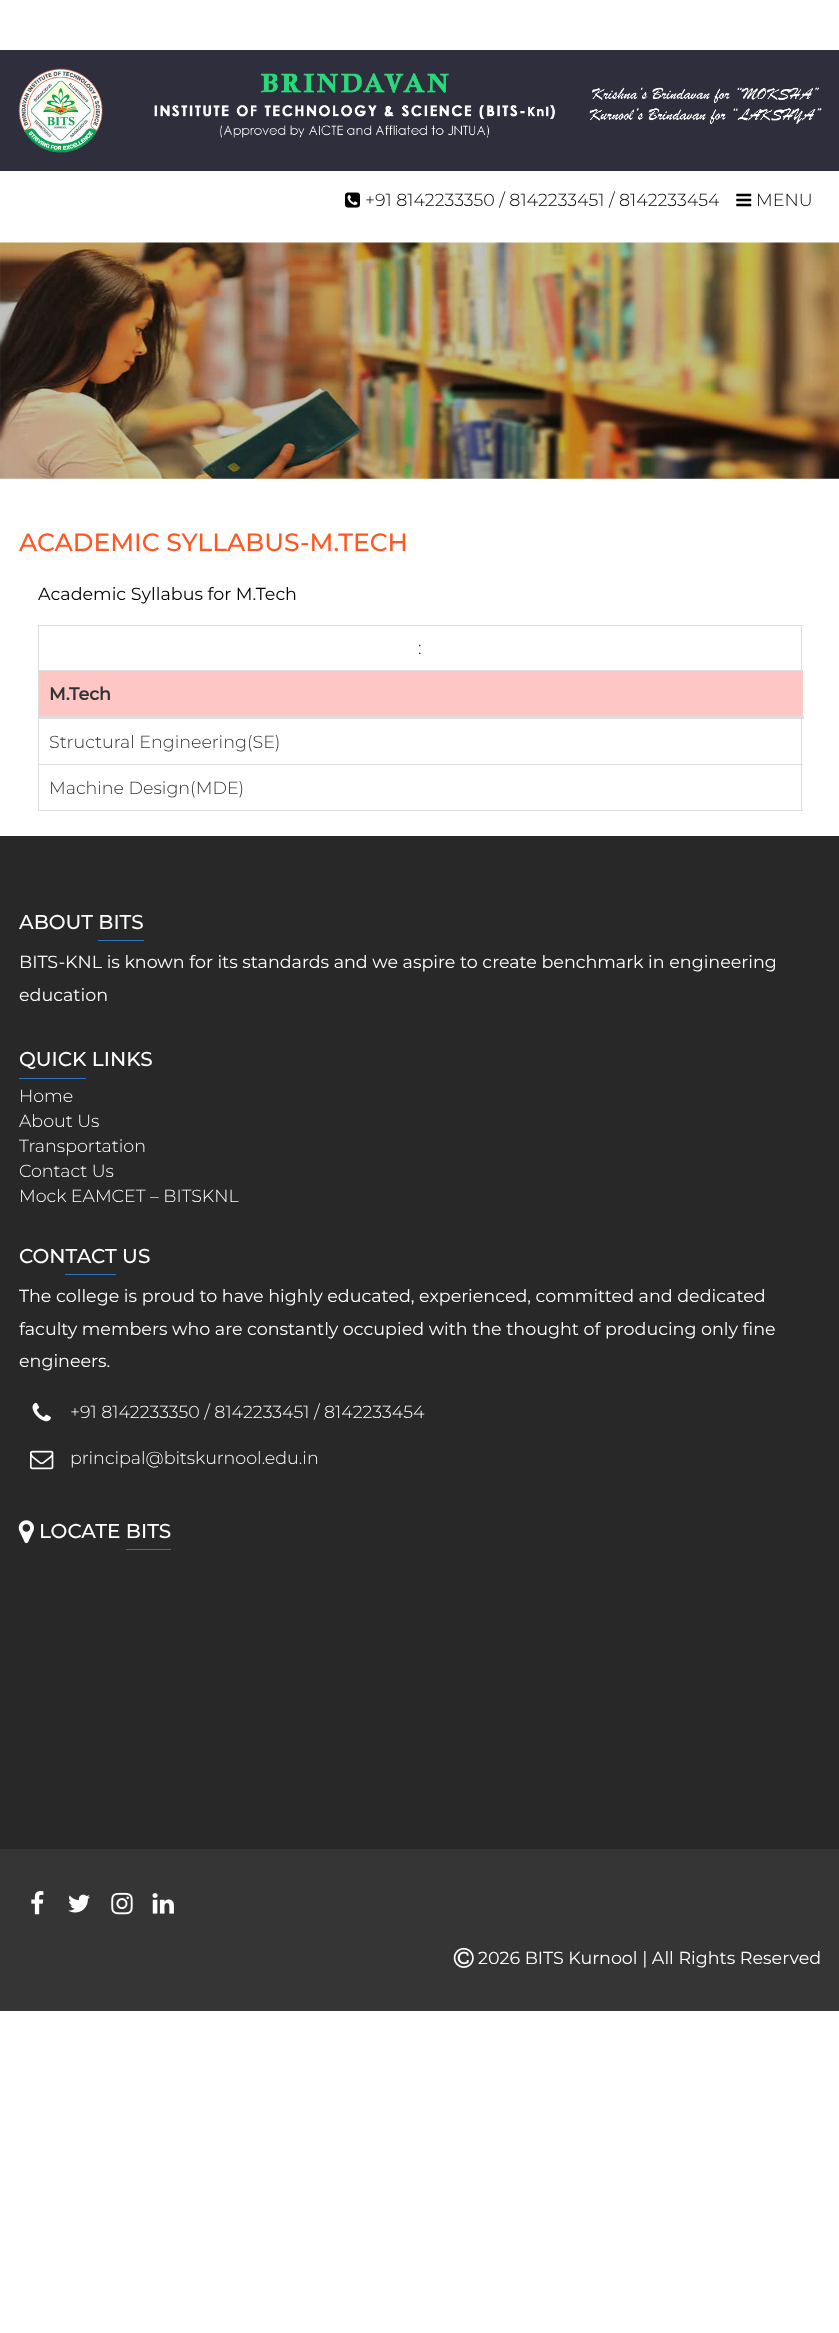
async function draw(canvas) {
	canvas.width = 839;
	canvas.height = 2333;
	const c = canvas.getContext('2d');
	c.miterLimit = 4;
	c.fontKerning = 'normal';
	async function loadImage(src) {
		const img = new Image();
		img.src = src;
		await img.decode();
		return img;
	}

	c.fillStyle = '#fff';
	c.fillRect(0, 0, 839, 2333);
	c.fillStyle = '#2f2e3c';
	c.fillRect(0, 50, 839, 121);
	c.drawImage(await loadImage('img1.png'), 18, 68, 804, 85);
	c.drawImage(await loadImage('img2.png'), 345, 192, 15, 16);
	c.font = '300 17.5px Montserrat';
	c.fillStyle = '#000';
	c.fillText('+91 8142233350 / 8142233451 / 8142233454', 365, 206);
	c.drawImage(await loadImage('img3.png'), 736, 193, 16, 14);
	c.fillText('MENU', 756, 206);
	c.drawImage(await loadImage('img4.png'), 0, 242, 839, 237);
	c.font = '500 25px Montserrat';
	c.fillStyle = '#ff5722';
	c.fillText('ACADEMIC SYLLABUS-M.TECH', 19, 551);
	c.font = '17.5px Montserrat';
	c.fillStyle = '#000';
	c.fillText('Academic Syllabus for M.Tech', 38, 600);
	for (const [x, y, w, h, color] of [
		[38, 625, 765, 1, '#ddd'],
		[39, 671, 764, 45, '#ffc6c6'],
		[801, 625, 1, 186, '#ddd'],
		[38, 810, 765, 1, '#ddd'],
		[38, 625, 1, 186, '#ddd'],
	]) {
		c.fillStyle = color;
		c.fillRect(x, y, w, h);
	}
	c.font = '300 17.5px Montserrat';
	c.fillStyle = '#000';
	c.fillText(':', 418, 654);
	c.fillStyle = '#ddd';
	c.fillRect(38, 670, 765, 1);
	c.fillRect(38, 716, 766, 3);
	c.font = 'bold 17.5px Montserrat';
	c.fillStyle = '#333';
	c.fillText('M.Tech', 49, 700);
	c.font = '300 17.5px Montserrat';
	c.fillText('Structural Engineering(SE)', 49, 748);
	c.fillStyle = '#ddd';
	c.fillRect(38, 764, 765, 1);
	c.fillStyle = '#333';
	c.fillText('Machine Design(MDE)', 49, 794);
	c.fillStyle = '#282828';
	c.fillRect(0, 836, 839, 1013);
	c.font = '500 20px Montserrat';
	c.fillStyle = '#fff';
	c.fillText('ABOUT BITS', 19, 929);
	c.fillStyle = '#2c76c2';
	c.fillRect(98, 940, 46, 1);
	c.font = '17.5px Montserrat';
	c.fillStyle = '#fff';
	c.fillText('BITS-KNL is known for its standards and we aspire to create benchmark in engineering', 19, 968);
	c.fillText('education', 19, 1001);
	c.font = '500 20px Montserrat';
	c.fillText('QUICK LINKS', 19, 1066);
	c.fillStyle = '#2c76c2';
	c.fillRect(19, 1078, 67, 1);
	c.font = '300 17.5px Montserrat';
	c.fillStyle = '#fff';
	for (const [text, x, y] of [
		['Home', 19, 1102],
		['About Us', 19, 1127],
		['Transportation', 19, 1152],
		['Contact Us', 19, 1177],
		['Mock EAMCET – BITSKNL', 19, 1202],
	]) {
		c.fillText(text, x, y);
	}
	c.font = '500 20px Montserrat';
	c.fillText('CONTACT US', 19, 1263);
	c.fillStyle = '#2c76c2';
	c.fillRect(65, 1274, 51, 1);
	c.font = '17.5px Montserrat';
	c.fillStyle = '#fff';
	for (const [text, x, y] of [
		['The college is proud to have highly educated, experienced, committed and dedicated', 19, 1302],
		['faculty members who are constantly occupied with the thought of producing only fine', 19, 1335],
		['engineers.', 19, 1367],
	]) {
		c.fillText(text, x, y);
	}
	c.drawImage(await loadImage('img5.png'), 32, 1402, 19, 20);
	c.font = '300 17.5px Montserrat';
	c.fillText('+91 8142233350 / 8142233451 / 8142233454', 70, 1418);
	c.drawImage(await loadImage('img6.png'), 30, 1450, 24, 20);
	c.fillText('principal@bitskurnool.edu.in', 70, 1464);
	c.drawImage(await loadImage('img7.png'), 18, 1520, 16, 24);
	c.font = '500 20px Montserrat';
	c.fillText('LOCATE BITS', 39, 1538);
	c.fillStyle = '#2c76c2';
	c.fillRect(126, 1549, 45, 1);
	c.fillStyle = '#363535';
	c.fillRect(0, 1849, 839, 162);
	c.drawImage(await loadImage('img8.png'), 31, 1891, 13, 24);
	c.drawImage(await loadImage('img9.png'), 68, 1894, 22, 19);
	c.drawImage(await loadImage('img10.png'), 111, 1892, 22, 23);
	c.drawImage(await loadImage('img11.png'), 152, 1893, 22, 21);
	c.drawImage(await loadImage('img12.png'), 453, 1947, 21, 21);
	c.font = '17.5px Montserrat';
	c.fillStyle = '#fff';
	c.fillText('2026 BITS Kurnool | All Rights Reserved', 478, 1964);
}

draw(document.querySelector('canvas'));
